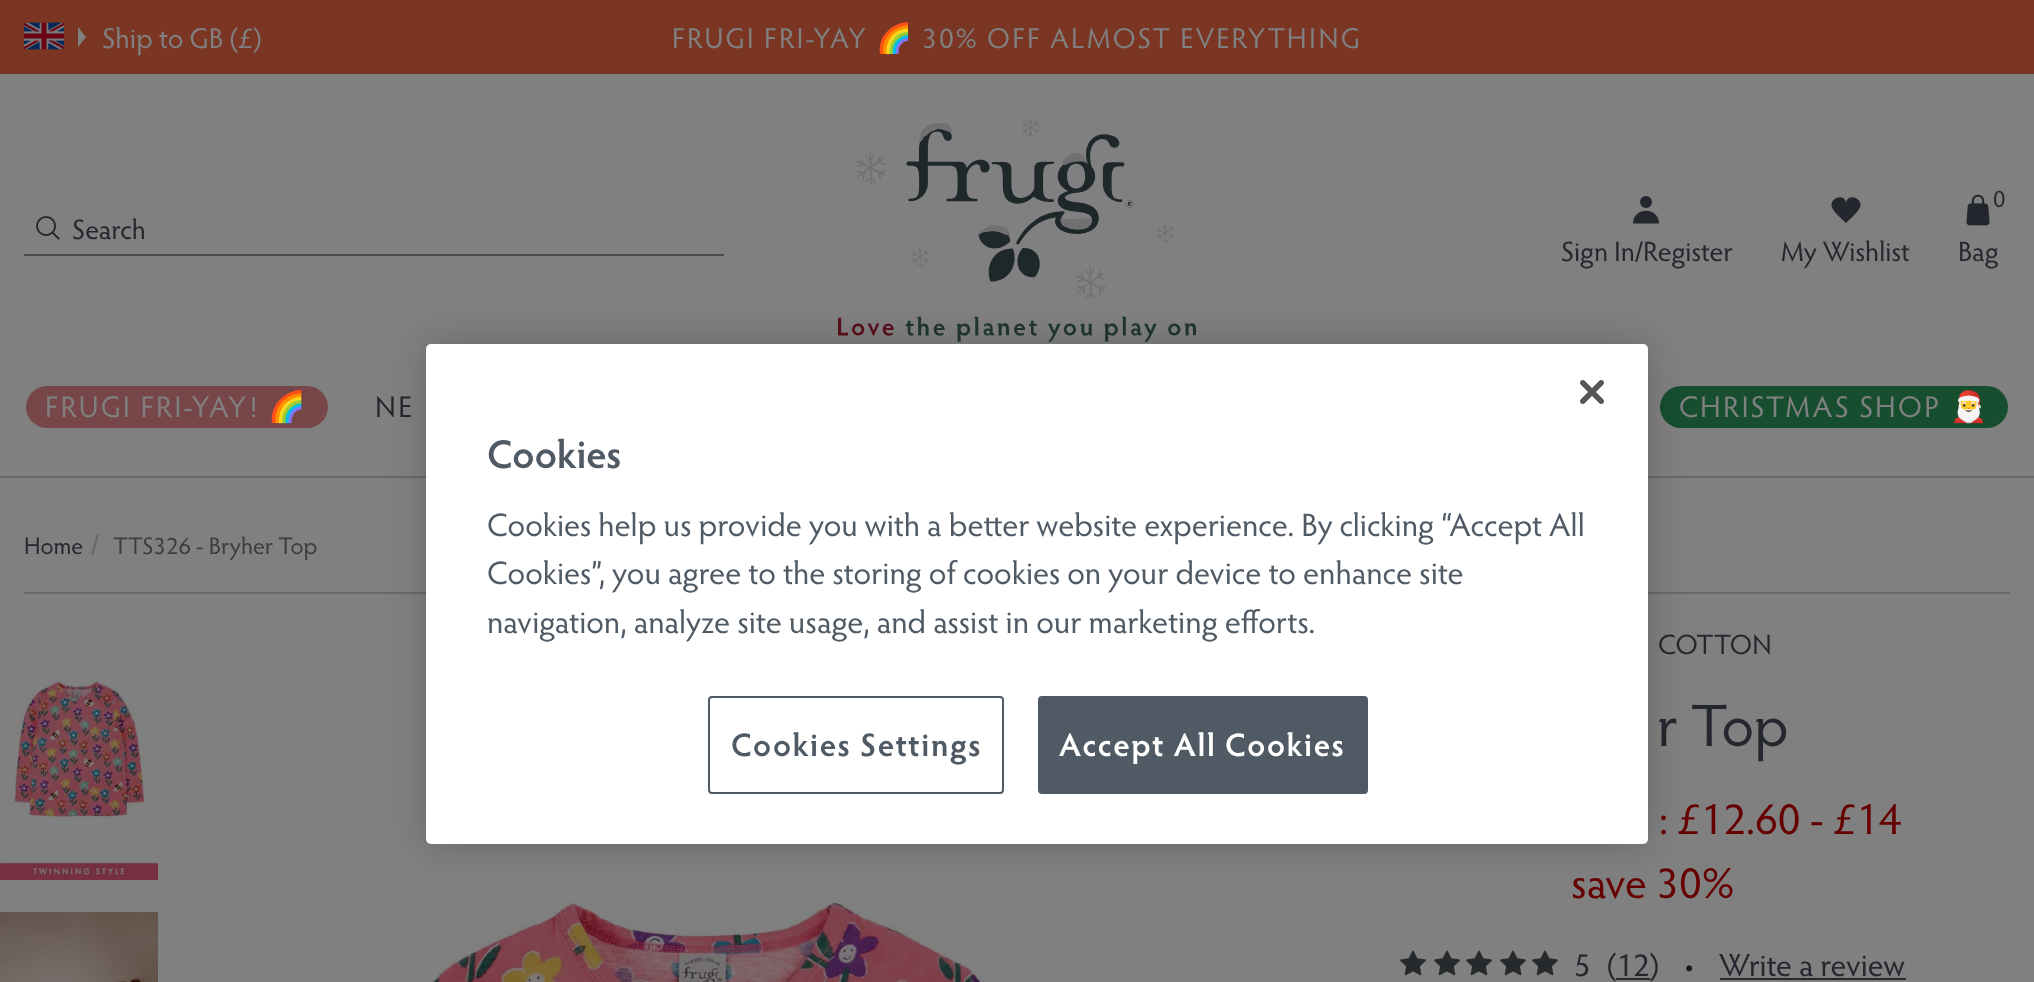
async function draw(canvas) {
	canvas.width = 2034;
	canvas.height = 982;
	const c = canvas.getContext('2d');
	c.miterLimit = 4;
	c.fontKerning = 'normal';
	async function loadImage(src) {
		const img = new Image();
		img.src = src;
		await img.decode();
		return img;
	}

	c.fillStyle = '#808080';
	c.fillRect(0, 0, 2034, 982);
	c.fillStyle = '#7a3523';
	c.fillRect(0, 0, 2034, 74);
	c.drawImage(await loadImage('img1.png'), 24, 22, 40, 28);
	c.fillStyle = '#808080';
	c.beginPath();
	c.moveTo(78, 27);
	c.lineTo(78, 47);
	c.lineTo(86, 37);
	c.closePath();
	c.fill();
	c.font = '28.75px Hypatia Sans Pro';
	c.fillText('Ship to GB (£)', 102, 48);
	c.letterSpacing = '2px';
	c.fillText('FRUGI FRI-YAY', 672, 48);
	c.font = '28.75px Noto Color Emoji';
	c.fillText('🌈', 876, 48);
	c.font = '28.75px Hypatia Sans Pro';
	c.fillText('30% OFF ALMOST EVERYTHING', 922, 48);
	c.fillStyle = '#696969';
	c.fillRect(0, 476, 2034, 2);
	c.fillStyle = '#4d4d4d';
	c.fillRect(24, 254, 700, 2);
	c.drawImage(await loadImage('img2.png'), 36, 216, 24, 24);
	c.letterSpacing = '0px';
	c.font = '28px Hypatia Sans Pro';
	c.fillStyle = '#25272e';
	c.fillText('Search', 72, 239);
	c.drawImage(await loadImage('img3.png'), 838, 118, 358, 224);
	c.beginPath();
	c.arc(1646, 202, 6, 0, 2 * Math.PI);
	c.fill();
	c.beginPath();
	c.moveTo(1659, 223.5);
	c.bezierCurveTo(1659, 206.5, 1633, 206.5, 1633, 223.5);
	c.closePath();
	c.fill();
	c.fillText('Sign In/Register', 1561, 261);
	c.beginPath();
	c.moveTo(1846, 202);
	c.bezierCurveTo(1843, 192.5, 1828.5, 199, 1832, 207.5);
	c.bezierCurveTo(1834.5, 213, 1842, 219, 1846, 223);
	c.bezierCurveTo(1850.5, 218.5, 1857, 213.5, 1860, 207.5);
	c.bezierCurveTo(1863.5, 199, 1849, 192.5, 1846, 202);
	c.closePath();
	c.fill();
	c.fillText('My Wishlist', 1781, 261);
	c.drawImage(await loadImage('img4.png'), 1966, 194, 24, 32);
	c.font = '24px Hypatia Sans Pro';
	c.fillText('0', 1993, 207);
	c.font = '28px Hypatia Sans Pro';
	c.fillText('Bag', 1958, 261);
	c.fillStyle = '#764648';
	c.beginPath();
	c.roundRect(26, 386, 302, 42, 21);
	c.fill();
	c.letterSpacing = '2px';
	c.font = '30px Hypatia Sans Pro';
	c.fillStyle = '#808080';
	c.fillText('FRUGI FRI-YAY!', 45, 417);
	c.font = '30px Noto Color Emoji';
	c.fillText('🌈', 268, 417);
	c.font = '30px Hypatia Sans Pro';
	c.fillStyle = '#25272e';
	c.fillText('NE', 375, 417);
	c.fillStyle = '#174e30';
	c.beginPath();
	c.roundRect(1660, 386, 348, 42, 21);
	c.fill();
	c.fillStyle = '#808080';
	c.fillText('CHRISTMAS SHOP', 1679, 417);
	c.font = '30px Noto Color Emoji';
	c.fillText('🎅', 1950, 417);
	c.fillStyle = '#696969';
	c.fillRect(24, 592, 1986, 2);
	c.letterSpacing = '0px';
	c.font = '24px Hypatia Sans Pro';
	c.fillStyle = '#25272e';
	c.fillText('Home', 24, 554);
	c.font = '28px Hypatia Sans Pro';
	c.fillStyle = '#666';
	c.fillText('/', 91, 554);
	c.font = '24px Hypatia Sans Pro';
	c.fillStyle = '#3c3c3c';
	c.fillText('TTS326 - Bryher Top', 113, 554);
	c.drawImage(await loadImage('img5.png'), 0, 678, 158, 202);
	c.drawImage(await loadImage('img6.png'), 0, 912, 158, 70);
	c.drawImage(await loadImage('img7.png'), 432, 902, 553, 80);
	c.font = '28px Hypatia Sans Pro';
	c.fillStyle = '#25272e';
	c.fillText('COTTON', 1658, 654);
	c.font = '60px Hypatia Sans Pro';
	c.fillText('r Top', 1657, 746);
	c.font = '44px Hypatia Sans Pro';
	c.fillStyle = '#600';
	c.fillText(': £12.60 - £14', 1659, 834);
	c.fillText('save 30%', 1571, 898);
	c.drawImage(await loadImage('img8.png'), 1400, 950, 26, 26);
	c.drawImage(await loadImage('img8.png'), 1434, 950, 26, 26);
	c.drawImage(await loadImage('img8.png'), 1466, 950, 26, 26);
	c.drawImage(await loadImage('img8.png'), 1500, 950, 26, 26);
	c.drawImage(await loadImage('img8.png'), 1532, 950, 26, 26);
	c.font = '32px Hypatia Sans Pro';
	c.fillStyle = '#25272e';
	c.fillText('5', 1574, 976);
	c.fillText('(12)', 1607, 976);
	c.fillStyle = '#272a2d';
	c.fillRect(1616, 978, 34, 2);
	c.fillStyle = '#1a1a1a';
	c.fillText('•', 1683, 976);
	c.fillStyle = '#25272e';
	c.fillText('Write a review', 1719, 976);
	c.fillStyle = '#272a2d';
	c.fillRect(1720, 978, 186, 2);
	c.fillStyle = '#00000033';
	c.filter = 'blur(18px)';
	c.beginPath();
	c.roundRect(426, 344, 1222, 500, 5);
	c.fill();
	c.filter = 'none';
	c.fillStyle = '#fff';
	c.beginPath();
	c.roundRect(426, 344, 1222, 500, 5);
	c.fill();
	c.drawImage(await loadImage('img9.png'), 1580, 380, 24, 24);
	c.font = '600 40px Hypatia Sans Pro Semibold';
	c.fillStyle = '#4f5a65';
	c.fillText('Cookies', 487, 468);
	c.font = '32.5px Hypatia Sans Pro';
	for (const [text, x, y] of [
		['Cookies help us provide you with a better website experience. By clicking “Accept All', 487, 536],
		['Cookies”, you agree to the storing of cookies on your device to enhance site', 487, 584],
		['navigation, analyze site usage, and assist in our marketing efforts.', 487, 633],
	]) {
		c.fillText(text, x, y);
	}
	c.beginPath();
	c.roundRect(709, 697, 294, 96, 3);
	c.strokeStyle = '#4f5a65';
	c.lineWidth = 2;
	c.stroke();
	c.letterSpacing = '1.6px';
	c.font = '600 32.5px Hypatia Sans Pro Semibold';
	c.fillText('Cookies Settings', 731, 756);
	c.beginPath();
	c.roundRect(1039, 697, 328, 96, 3);
	c.fill();
	c.stroke();
	c.fillStyle = '#fff';
	c.fillText('Accept All Cookies', 1059, 756);
}

draw(document.querySelector('canvas'));
